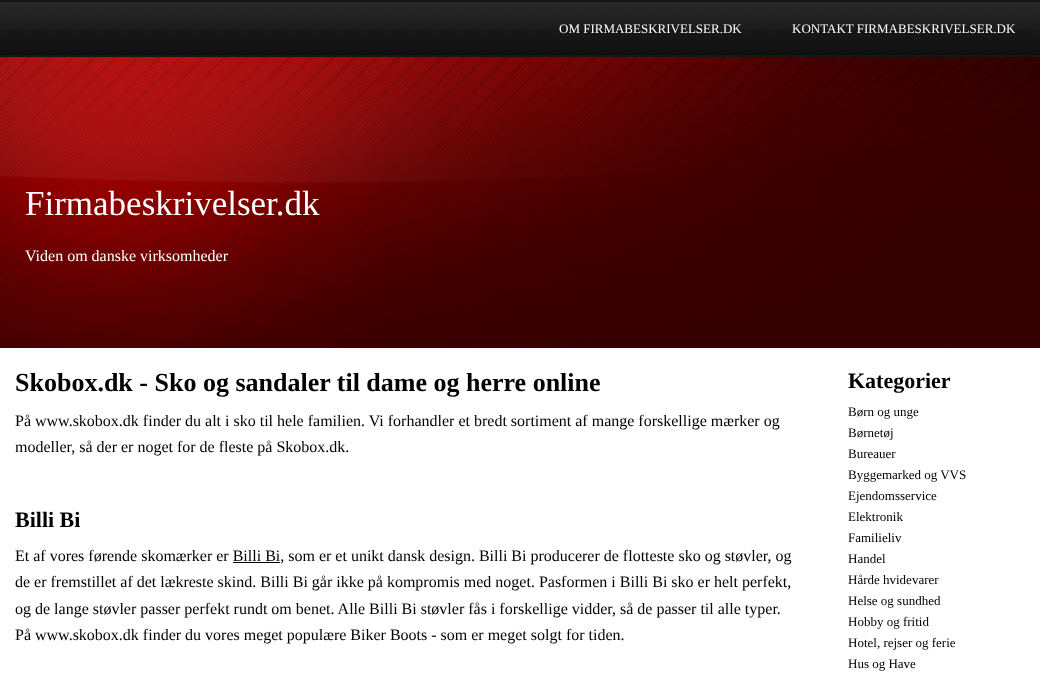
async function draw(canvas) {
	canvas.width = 1040;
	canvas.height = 677;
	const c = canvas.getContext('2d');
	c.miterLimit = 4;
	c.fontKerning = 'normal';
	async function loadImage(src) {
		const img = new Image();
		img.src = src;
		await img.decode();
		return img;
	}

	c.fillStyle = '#fff';
	c.fillRect(0, 0, 1040, 677);
	c.drawImage(await loadImage('img1.png'), 0, 57, 1040, 291);
	c.drawImage(await loadImage('img2.png'), 0, 0, 1040, 57);
	c.font = '13px Liberation Serif';
	c.fillText('OM FIRMABESKRIVELSER.DK', 559, 33);
	c.fillText('KONTAKT FIRMABESKRIVELSER.DK', 792, 33);
	c.font = '35px Liberation Serif';
	c.fillText('Firmabeskrivelser.dk', 25, 215);
	c.font = '16px Liberation Serif';
	c.fillText('Viden om danske virksomheder', 25, 261);
	c.font = 'bold 26px Liberation Serif';
	c.fillStyle = '#000';
	c.fillText('Skobox.dk - Sko og sandaler til dame og herre online', 15, 391);
	c.font = '16px Liberation Serif';
	c.fillText('På www.skobox.dk finder du alt i sko til hele familien. Vi forhandler et bredt sortiment af mange forskellige mærker og', 15, 426);
	c.fillText('modeller, så der er noget for de fleste på Skobox.dk.', 15, 452);
	c.font = 'bold 22px Liberation Serif';
	c.fillText('Billi Bi', 15, 527);
	c.font = '16px Liberation Serif';
	c.fillText('Et af vores førende skomærker er Billi Bi, som er et unikt dansk design. Billi Bi producerer de flotteste sko og støvler, og', 15, 561);
	c.fillRect(233, 562, 47, 1);
	for (const [text, x, y] of [
		['de er fremstillet af det lækreste skind. Billi Bi går ikke på kompromis med noget. Pasformen i Billi Bi sko er helt perfekt,', 15, 587],
		['og de lange støvler passer perfekt rundt om benet. Alle Billi Bi støvler fås i forskellige vidder, så de passer til alle typer.', 15, 614],
		['På www.skobox.dk finder du vores meget populære Biker Boots - som er meget solgt for tiden.', 15, 640],
	]) {
		c.fillText(text, x, y);
	}
	c.font = 'bold 22px Liberation Serif';
	c.fillText('Kategorier', 848, 388);
	c.font = '13px Liberation Serif';
	for (const [text, x, y] of [
		['Børn og unge', 848, 416],
		['Børnetøj', 848, 437],
		['Bureauer', 848, 458],
		['Byggemarked og VVS', 848, 479],
		['Ejendomsservice', 848, 500],
		['Elektronik', 848, 521],
		['Familieliv', 848, 542],
		['Handel', 848, 563],
		['Hårde hvidevarer', 848, 584],
		['Helse og sundhed', 848, 605],
		['Hobby og fritid', 848, 626],
		['Hotel, rejser og ferie', 848, 647],
		['Hus og Have', 848, 668],
	]) {
		c.fillText(text, x, y);
	}
}

draw(document.querySelector('canvas'));
